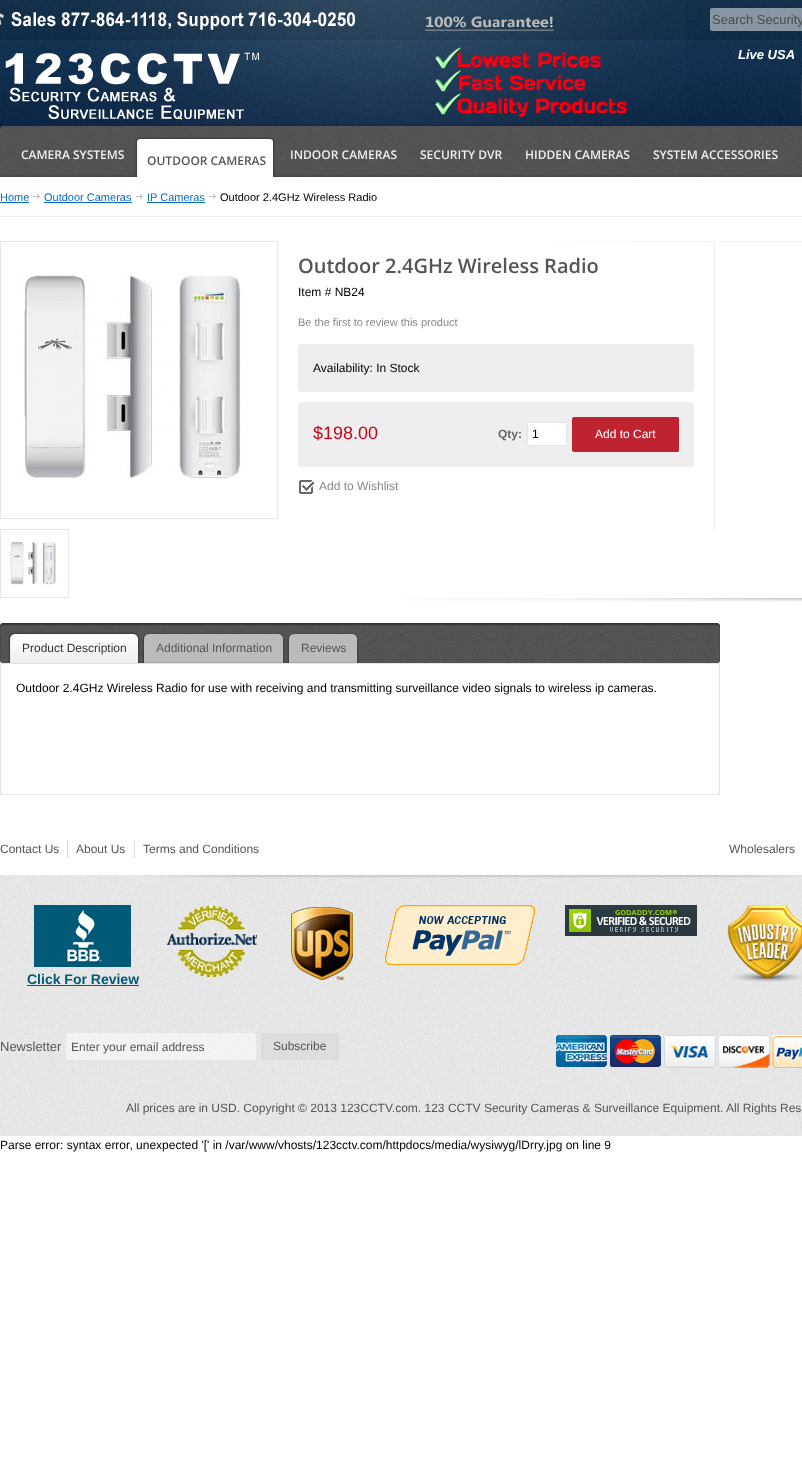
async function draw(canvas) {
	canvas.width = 802;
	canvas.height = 1459;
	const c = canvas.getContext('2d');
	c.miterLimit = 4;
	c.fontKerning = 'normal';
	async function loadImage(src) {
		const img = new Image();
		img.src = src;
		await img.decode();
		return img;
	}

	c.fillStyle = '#fff';
	c.fillRect(0, 0, 802, 1459);
	c.drawImage(await loadImage('img1.png'), 0, 0, 802, 129);
	c.drawImage(await loadImage('img2.png'), 89, 0, 596, 126);
	c.drawImage(await loadImage('img3.png'), 0, 13, 4, 12);
	c.drawImage(await loadImage('img4.png'), 11, 12, 344, 18);
	c.drawImage(await loadImage('img5.png'), 425, 16, 129, 15);
	c.fillStyle = '#ffffff80';
	c.beginPath();
	c.roundRect(710, 8, 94, 23, 2);
	c.fill();
	c.font = '13px Liberation Sans';
	c.fillStyle = '#4b4b4b';
	c.fillText('Search Security', 712, 24);
	c.drawImage(await loadImage('img6.png'), 5, 52, 254, 68);
	c.drawImage(await loadImage('img7.png'), 435, 47, 192, 70);
	c.font = 'italic bold 13px Liberation Sans';
	c.fillStyle = '#fff';
	c.fillText('Live USA', 738, 59);
	c.fillStyle = '#ffffff1a';
	c.beginPath();
	c.roundRect(801, 74, 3, 42, 2);
	c.fill();
	c.drawImage(await loadImage('img8.png'), 0, 126, 8, 51);
	c.drawImage(await loadImage('img9.png'), 8, 126, 794, 51);
	c.font = '600 12px Open Sans';
	c.fillStyle = '#eee';
	for (const [text, x, y] of [
		['CAMERA SYSTEMS', 21, 159],
		['INDOOR CAMERAS', 290, 159],
		['SECURITY DVR', 420, 159],
		['HIDDEN CAMERAS', 525, 159],
		['SYSTEM ACCESSORIES', 653, 159],
	]) {
		c.fillText(text, x, y);
	}
	c.drawImage(await loadImage('img10.png'), 135, 137, 7, 40);
	c.drawImage(await loadImage('img11.png'), 142, 137, 133, 40);
	c.fillStyle = '#555';
	c.fillText('OUTDOOR CAMERAS', 147, 165);
	c.fillStyle = '#f0f0f0';
	c.fillRect(0, 216, 802, 1);
	c.font = '11px Liberation Sans';
	c.fillStyle = '#066cc3';
	c.fillText('Home', 0, 201);
	c.fillRect(0, 202, 29, 1);
	c.drawImage(await loadImage('img12.png'), 33, 194, 7, 5);
	c.fillText('Outdoor Cameras', 44, 201);
	c.fillRect(44, 202, 88, 1);
	c.drawImage(await loadImage('img12.png'), 136, 194, 7, 5);
	c.fillText('IP Cameras', 147, 201);
	c.fillRect(147, 202, 58, 1);
	c.drawImage(await loadImage('img12.png'), 209, 194, 7, 5);
	c.fillStyle = '#000';
	c.fillText('Outdoor 2.4GHz Wireless Radio', 220, 201);
	c.drawImage(await loadImage('img13.png'), 405, 598, 397, 4);
	c.drawImage(await loadImage('img14.png'), 549, 241, 253, 1);
	c.strokeStyle = '#e5e5e5';
	c.strokeRect(0.5, 241.5, 277, 277);
	c.drawImage(await loadImage('img15.png'), 22, 271, 223, 208);
	c.strokeRect(0.5, 529.5, 68, 68);
	c.drawImage(await loadImage('img16.png'), 7, 536, 50, 49);
	c.fillStyle = '#eee';
	c.fillRect(714, 243, 1, 288);
	c.font = '600 20px Open Sans';
	c.fillStyle = '#555';
	c.fillText('Outdoor 2.4GHz Wireless Radio', 298, 273);
	c.font = '12px Liberation Sans';
	c.fillStyle = '#000';
	c.fillText('Item # NB24', 298, 296);
	c.font = '11px Liberation Sans';
	c.fillStyle = '#888';
	c.fillText('Be the first to review this product', 298, 326);
	c.fillStyle = '#eee';
	c.beginPath();
	c.roundRect(298, 344, 396, 48, 3);
	c.fill();
	c.font = '12px Liberation Sans';
	c.fillStyle = '#000';
	c.fillText('Availability: In Stock', 313, 372);
	c.fillStyle = '#eee';
	c.beginPath();
	c.roundRect(298, 402, 396, 65, 3);
	c.fill();
	c.font = '18px Liberation Sans';
	c.fillStyle = '#ce001a';
	c.fillText('$198.00', 313, 439);
	c.font = 'bold 12px Liberation Sans';
	c.fillStyle = '#666';
	c.fillText('Qty:', 498, 438);
	c.fillStyle = '#fff';
	c.beginPath();
	c.roundRect(527.5, 422.5, 39, 23, 1.5);
	c.fill();
	c.stroke();
	c.font = '12px Liberation Sans';
	c.fillStyle = '#000';
	c.fillText('1', 532, 438);
	c.fillStyle = '#bf2330';
	c.beginPath();
	c.roundRect(572, 417, 107, 35, 2);
	c.fill();
	c.beginPath();
	c.roundRect(580, 417, 99, 35, 2);
	c.fill();
	c.fillStyle = '#fff';
	c.fillText('Add to Cart', 595, 438);
	c.drawImage(await loadImage('img17.png'), 299, 480, 15, 14);
	c.fillStyle = '#888';
	c.fillText('Add to Wishlist', 319, 490);
	c.drawImage(await loadImage('img18.png'), 0, 623, 8, 40);
	c.drawImage(await loadImage('img19.png'), 8, 623, 704, 40);
	c.drawImage(await loadImage('img20.png'), 8, 632, 9, 31);
	c.drawImage(await loadImage('img21.png'), 17, 632, 124, 31);
	c.fillStyle = '#333';
	c.fillText('Product Description', 22, 652);
	c.drawImage(await loadImage('img22.png'), 142, 633, 9, 30);
	c.drawImage(await loadImage('img23.png'), 151, 633, 134, 30);
	c.fillStyle = '#555';
	c.fillText('Additional Information', 156, 652);
	c.drawImage(await loadImage('img24.png'), 287, 633, 9, 30);
	c.drawImage(await loadImage('img25.png'), 296, 633, 63, 30);
	c.fillText('Reviews', 301, 652);
	c.drawImage(await loadImage('img26.png'), 712, 623, 8, 40);
	c.strokeRect(0.5, 663.5, 719, 131);
	c.fillStyle = '#000';
	c.fillText('Outdoor 2.4GHz Wireless Radio for use with receiving and transmitting surveillance video signals to wireless ip cameras.', 16, 692);
	c.drawImage(await loadImage('img27.png'), 0, 875, 802, 261);
	c.drawImage(await loadImage('img28.png'), 159, 875, 642, 3);
	c.fillStyle = '#ddd';
	c.fillRect(67, 840, 1, 18);
	c.fillStyle = '#555';
	c.fillText('Contact Us', 0, 853);
	c.fillStyle = '#ddd';
	c.fillRect(134, 840, 1, 18);
	c.fillStyle = '#555';
	for (const [text, x, y] of [
		['About Us', 76, 853],
		['Terms and Conditions', 143, 853],
		['Wholesalers', 729, 853],
	]) {
		c.fillText(text, x, y);
	}
	c.drawImage(await loadImage('img29.png'), 34, 905, 97, 62);
	c.font = 'bold 14px Liberation Sans';
	c.fillStyle = '#015a78';
	c.fillText('Click For Review', 27, 984);
	c.fillRect(27, 985, 112, 1);
	c.drawImage(await loadImage('img30.png'), 167, 905, 90, 72);
	c.drawImage(await loadImage('img31.png'), 290, 905, 65, 78);
	c.drawImage(await loadImage('img32.png'), 385, 905, 150, 60);
	c.drawImage(await loadImage('img33.png'), 565, 905, 132, 31);
	c.drawImage(await loadImage('img34.png'), 726, 905, 76, 77);
	c.font = '13px Liberation Sans';
	c.fillStyle = '#555';
	c.fillText('Newsletter', 0, 1051);
	c.fillStyle = '#ffffff80';
	c.beginPath();
	c.roundRect(66, 1033, 190, 27, 2);
	c.fill();
	c.font = '12px Liberation Sans';
	c.fillStyle = '#555';
	c.fillText('Enter your email address', 71, 1051);
	c.fillStyle = '#ddd';
	c.beginPath();
	c.roundRect(261, 1033, 78, 27, 2);
	c.fill();
	c.fillStyle = '#555';
	c.fillText('Subscribe', 273, 1050);
	c.drawImage(await loadImage('img35.png'), 556, 1035, 246, 33);
	c.fillText('All prices are in USD. Copyright © 2013 123CCTV.com. 123 CCTV Security Cameras & Surveillance Equipment. All Rights Res', 126, 1112);
	c.fillStyle = '#000';
	c.fillText('Parse error: syntax error, unexpected \'[\' in /var/www/vhosts/123cctv.com/httpdocs/media/wysiwyg/lDrry.jpg on line 9', 0, 1149);
}

draw(document.querySelector('canvas'));
